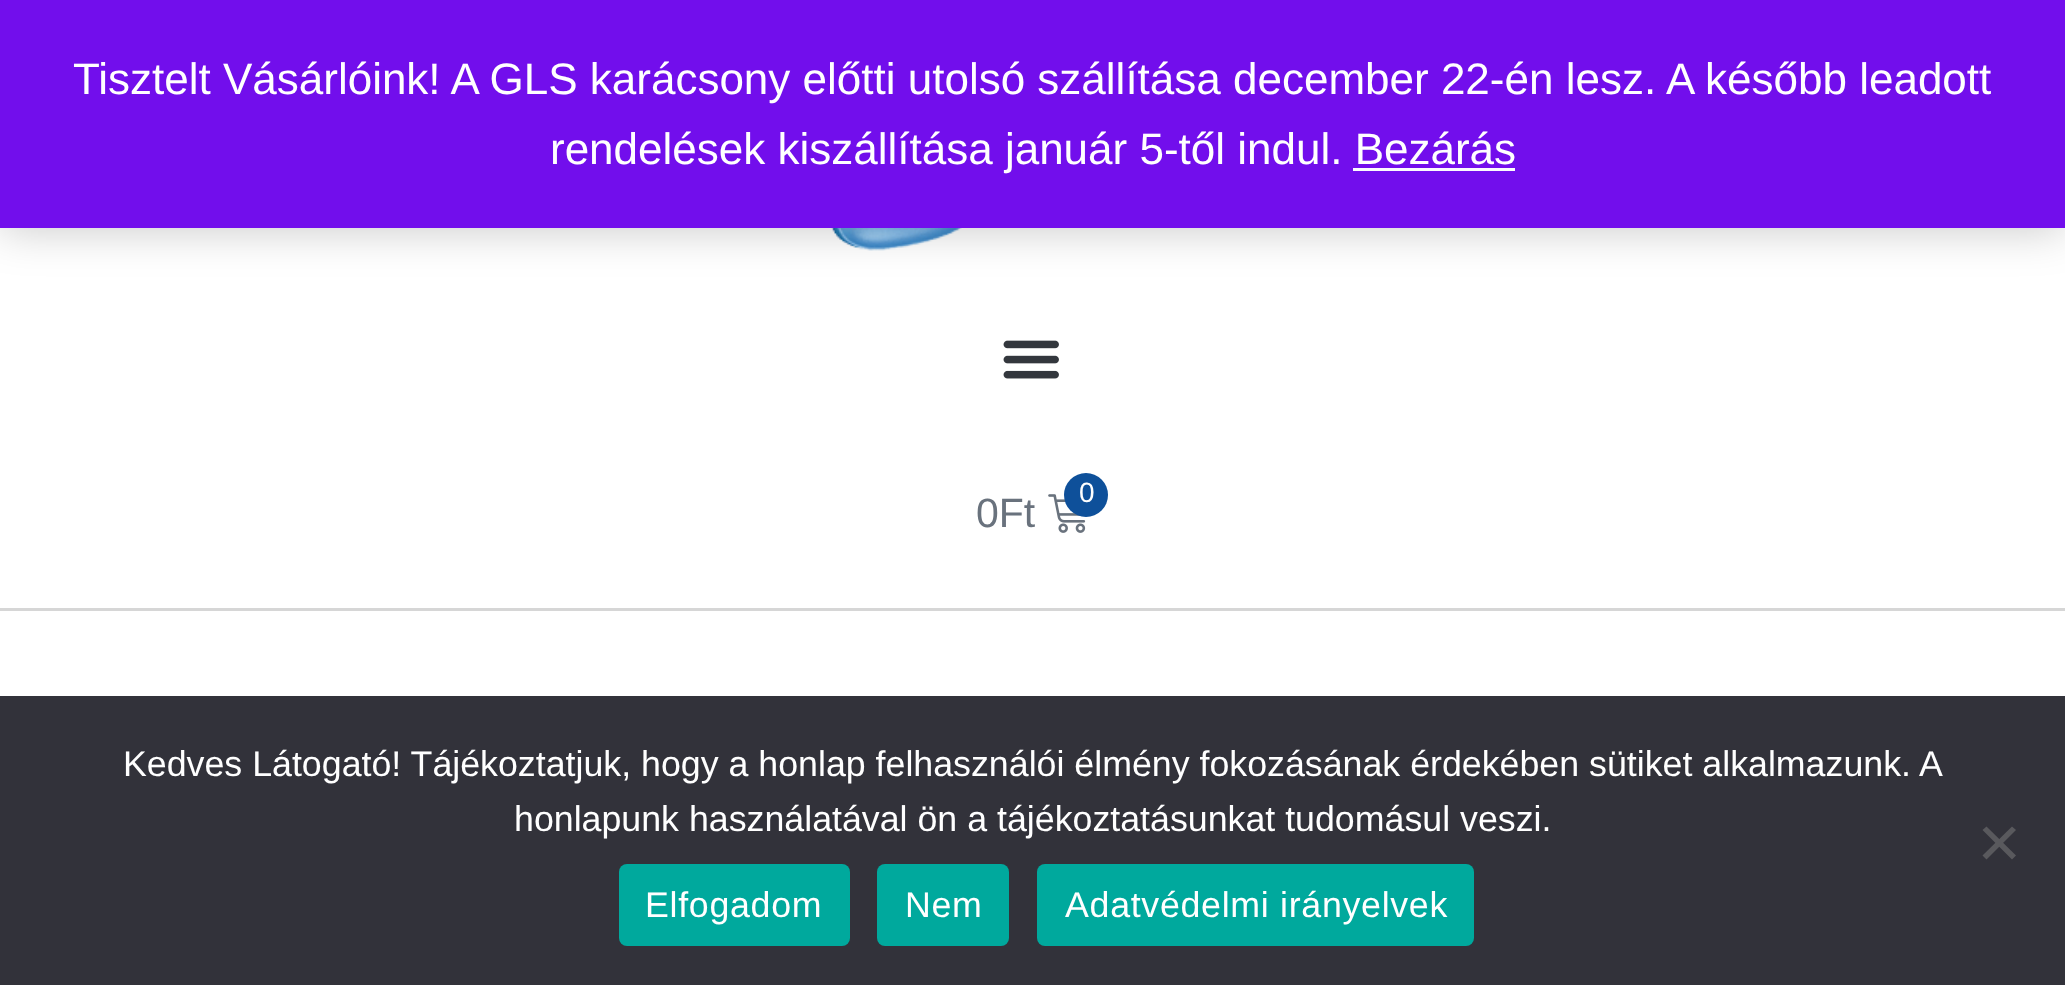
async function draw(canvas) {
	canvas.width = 2065;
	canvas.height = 985;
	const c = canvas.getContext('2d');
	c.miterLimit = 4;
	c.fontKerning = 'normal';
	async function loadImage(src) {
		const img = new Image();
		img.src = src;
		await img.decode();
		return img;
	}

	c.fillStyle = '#fff';
	c.fillRect(0, 0, 2065, 985);
	c.drawImage(await loadImage('img1.png'), 831, 228, 132, 23);
	c.fillStyle = '#00000033';
	c.filter = 'blur(22px)';
	c.beginPath();
	c.rect(0, 3, 2065, 228);
	c.fill();
	c.filter = 'none';
	c.fillStyle = '#720eec';
	c.fillRect(0, 0, 2065, 228);
	c.font = '44px Liberation Sans';
	c.fillStyle = '#fff';
	c.fillText('Tisztelt Vásárlóink! A GLS karácsony előtti utolsó szállítása december 22-én lesz. A később leadott', 73, 94);
	c.fillText('rendelések kiszállítása január 5-től indul. Bezárás', 550, 164);
	c.fillStyle = '#fcfbfe';
	c.fillRect(1353, 168, 162, 3);
	c.fillStyle = '#d6d6d6';
	c.fillRect(0, 608, 2065, 3);
	c.drawImage(await loadImage('img2.png'), 1003, 340, 56, 39);
	c.drawImage(await loadImage('img3.png'), 1048, 494, 38, 39);
	c.fillStyle = '#0e509a';
	c.beginPath();
	c.arc(1086, 495, 22, 0, 2 * Math.PI);
	c.fill();
	c.font = '28px Liberation Sans';
	c.fillStyle = '#fff';
	c.fillText('0', 1079, 502);
	c.font = '41px Liberation Sans';
	c.fillStyle = '#69727d';
	c.fillText('0Ft', 976, 527);
	c.fillStyle = '#32323a';
	c.fillRect(0, 696, 2065, 289);
	c.font = '35.75px Liberation Sans';
	c.fillStyle = '#fff';
	c.fillText('Kedves Látogató! Tájékoztatjuk, hogy a honlap felhasználói élmény fokozásának érdekében sütiket alkalmazunk. A', 123, 776);
	c.fillText('honlapunk használatával ön a tájékoztatásunkat tudomásul veszi.', 514, 831);
	c.fillStyle = '#59595d';
	c.beginPath();
	c.moveTo(2012, 826.5);
	c.lineTo(2016, 830);
	c.lineTo(1986.5, 859.5);
	c.lineTo(1982.5, 855.5);
	c.closePath();
	c.fill();
	c.beginPath();
	c.moveTo(1982.5, 830);
	c.lineTo(1986.5, 826.5);
	c.lineTo(2016, 855.5);
	c.lineTo(2012, 859.5);
	c.closePath();
	c.fill();
	c.fillStyle = '#00a99d';
	c.beginPath();
	c.roundRect(619, 864, 231, 82, 8);
	c.fill();
	c.letterSpacing = '0.7px';
	c.fillStyle = '#fff';
	c.fillText('Elfogadom', 645, 917);
	c.fillStyle = '#00a99d';
	c.beginPath();
	c.roundRect(877, 864, 132, 82, 8);
	c.fill();
	c.fillStyle = '#fff';
	c.fillText('Nem', 905, 917);
	c.fillStyle = '#00a99d';
	c.beginPath();
	c.roundRect(1037, 864, 437, 82, 8);
	c.fill();
	c.fillStyle = '#fff';
	c.fillText('Adatvédelmi irányelvek', 1065, 917);
}

draw(document.querySelector('canvas'));
